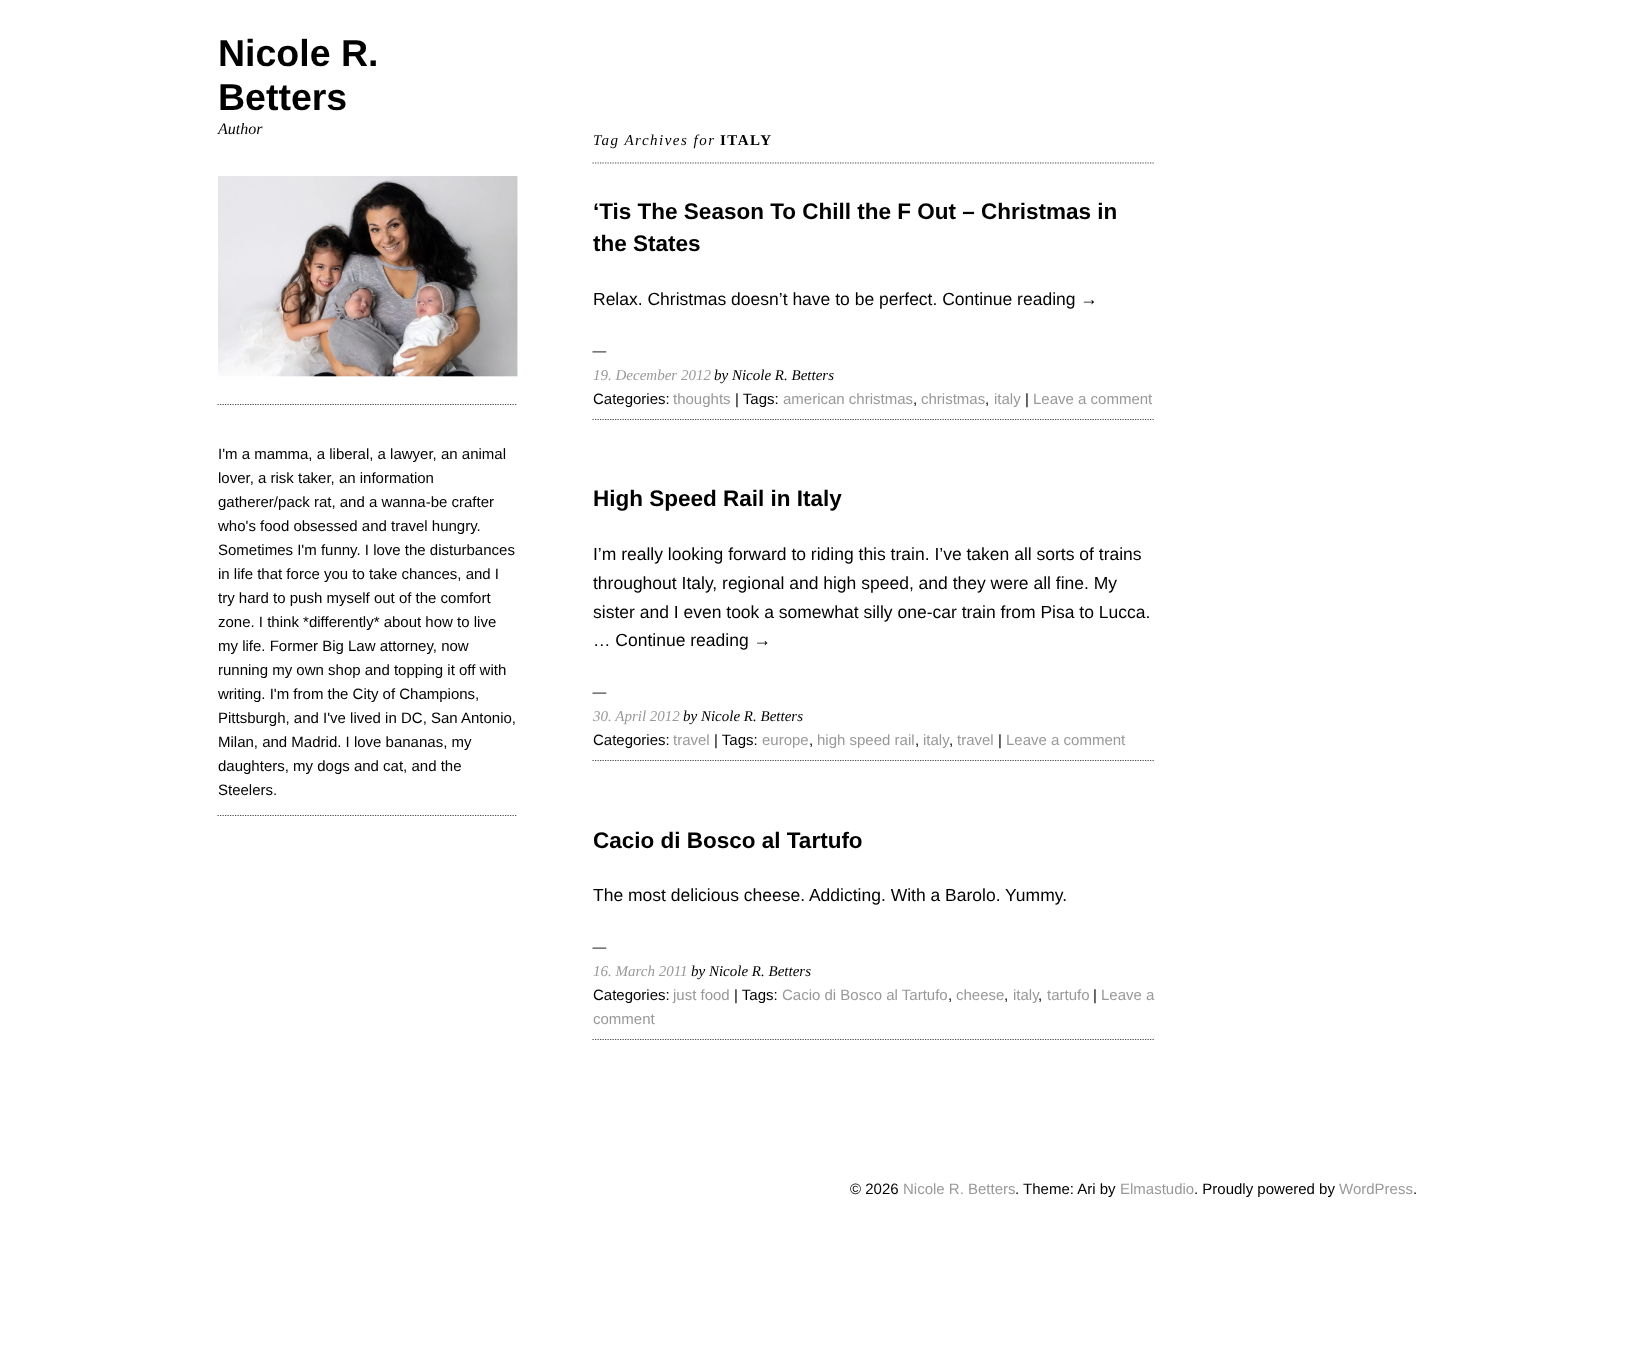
async function draw(canvas) {
	canvas.width = 1634;
	canvas.height = 1372;
	const c = canvas.getContext('2d');
	c.miterLimit = 4;
	c.fontKerning = 'normal';
	async function loadImage(src) {
		const img = new Image();
		img.src = src;
		await img.decode();
		return img;
	}

	c.fillStyle = '#fff';
	c.fillRect(0, 0, 1634, 1372);
	c.font = 'bold 37.5px Liberation Sans';
	c.fillStyle = '#000';
	c.fillText('Nicole R.', 218, 66);
	c.fillText('Betters', 218, 110);
	c.font = 'italic 16px Liberation Serif';
	c.fillText('Author', 218, 134);
	c.beginPath();
	c.moveTo(217.5, 404.5);
	c.lineTo(517.5, 404.5);
	c.strokeStyle = '#4c4c4c';
	c.lineWidth = 1.2;
	c.setLineDash([1.25, 1.25]);
	c.stroke();
	c.drawImage(await loadImage('img1.png'), 218, 176, 300, 201);
	c.beginPath();
	c.moveTo(217.5, 815.5);
	c.lineTo(517.5, 815.5);
	c.stroke();
	c.font = '15px Liberation Sans';
	for (const [text, x, y] of [
		['I\'m a mamma, a liberal, a lawyer, an animal', 218, 459],
		['lover, a risk taker, an information', 218, 483],
		['gatherer/pack rat, and a wanna-be crafter', 218, 507],
		['who\'s food obsessed and travel hungry.', 218, 531],
		['Sometimes I\'m funny. I love the disturbances', 218, 555],
		['in life that force you to take chances, and I', 218, 579],
		['try hard to push myself out of the comfort', 218, 603],
		['zone. I think *differently* about how to live', 218, 627],
		['my life. Former Big Law attorney, now', 218, 651],
		['running my own shop and topping it off with', 218, 675],
		['writing. I\'m from the City of Champions,', 218, 699],
		['Pittsburgh, and I\'ve lived in DC, San Antonio,', 218, 723],
		['Milan, and Madrid. I love bananas, my', 218, 747],
		['daughters, my dogs and cat, and the', 218, 771],
		['Steelers.', 218, 795],
	]) {
		c.fillText(text, x, y);
	}
	c.beginPath();
	c.moveTo(592.5, 163);
	c.lineTo(1155, 163);
	c.stroke();
	c.letterSpacing = '1.5px';
	c.font = 'italic 15px Liberation Serif';
	c.fillText('Tag Archives for', 593, 145);
	c.font = 'bold 15px Liberation Serif';
	c.fillText('ITALY', 720, 145);
	c.beginPath();
	c.moveTo(592.5, 419.5);
	c.lineTo(1155, 419.5);
	c.stroke();
	c.letterSpacing = '0px';
	c.font = 'bold 22.5px Liberation Sans';
	c.fillText('‘Tis The Season To Chill the F Out – Christmas in', 593, 219);
	c.fillText('the States', 593, 251);
	c.font = '17.5px Liberation Sans';
	c.fillText('Relax. Christmas doesn’t have to be perfect. Continue reading →', 593, 305);
	c.drawImage(await loadImage('img2.png'), 592, 351, 15, 2);
	c.font = 'italic 15px Liberation Serif';
	c.fillStyle = '#999';
	c.fillText('19. December 2012', 593, 380);
	c.fillStyle = '#000';
	c.fillText('by Nicole R. Betters', 714, 380);
	c.font = '15px Liberation Sans';
	c.fillText('Categories:', 593, 404);
	c.fillStyle = '#999';
	c.fillText('thoughts', 673, 404);
	c.fillStyle = '#000';
	c.fillText('| Tags:', 735, 404);
	c.fillStyle = '#999';
	c.fillText('american christmas', 783, 404);
	c.fillStyle = '#000';
	c.fillText(',', 913, 404);
	c.fillStyle = '#999';
	c.fillText('christmas', 921, 404);
	c.fillStyle = '#000';
	c.fillText(',', 985, 404);
	c.fillStyle = '#999';
	c.fillText('italy', 994, 404);
	c.fillStyle = '#000';
	c.fillText('|', 1025, 404);
	c.fillStyle = '#999';
	c.fillText('Leave a comment', 1033, 404);
	c.beginPath();
	c.moveTo(592.5, 760.5);
	c.lineTo(1155, 760.5);
	c.stroke();
	c.font = 'bold 22.5px Liberation Sans';
	c.fillStyle = '#000';
	c.fillText('High Speed Rail in Italy', 593, 506);
	c.font = '17.5px Liberation Sans';
	for (const [text, x, y] of [
		['I’m really looking forward to riding this train. I’ve taken all sorts of trains', 593, 560],
		['throughout Italy, regional and high speed, and they were all fine. My', 593, 589],
		['sister and I even took a somewhat silly one-car train from Pisa to Lucca.', 593, 618],
		['… Continue reading →', 593, 646],
	]) {
		c.fillText(text, x, y);
	}
	c.drawImage(await loadImage('img3.png'), 592, 692, 15, 2);
	c.font = 'italic 15px Liberation Serif';
	c.fillStyle = '#999';
	c.fillText('30. April 2012', 593, 721);
	c.fillStyle = '#000';
	c.fillText('by Nicole R. Betters', 683, 721);
	c.font = '15px Liberation Sans';
	c.fillText('Categories:', 593, 745);
	c.fillStyle = '#999';
	c.fillText('travel', 673, 745);
	c.fillStyle = '#000';
	c.fillText('| Tags:', 714, 745);
	c.fillStyle = '#999';
	c.fillText('europe', 762, 745);
	c.fillStyle = '#000';
	c.fillText(',', 809, 745);
	c.fillStyle = '#999';
	c.fillText('high speed rail', 817, 745);
	c.fillStyle = '#000';
	c.fillText(',', 915, 745);
	c.fillStyle = '#999';
	c.fillText('italy', 923, 745);
	c.fillStyle = '#000';
	c.fillText(',', 949, 745);
	c.fillStyle = '#999';
	c.fillText('travel', 957, 745);
	c.fillStyle = '#000';
	c.fillText('|', 998, 745);
	c.fillStyle = '#999';
	c.fillText('Leave a comment', 1006, 745);
	c.beginPath();
	c.moveTo(592.5, 1039.5);
	c.lineTo(1155, 1039.5);
	c.stroke();
	c.font = 'bold 22.5px Liberation Sans';
	c.fillStyle = '#000';
	c.fillText('Cacio di Bosco al Tartufo', 593, 848);
	c.font = '17.5px Liberation Sans';
	c.fillText('The most delicious cheese. Addicting. With a Barolo. Yummy.', 593, 901);
	c.drawImage(await loadImage('img3.png'), 592, 947, 15, 2);
	c.font = 'italic 15px Liberation Serif';
	c.fillStyle = '#999';
	c.fillText('16. March 2011', 593, 976);
	c.fillStyle = '#000';
	c.fillText('by Nicole R. Betters', 691, 976);
	c.font = '15px Liberation Sans';
	c.fillText('Categories:', 593, 1000);
	c.fillStyle = '#999';
	c.fillText('just food', 673, 1000);
	c.fillStyle = '#000';
	c.fillText('| Tags:', 734, 1000);
	c.fillStyle = '#999';
	c.fillText('Cacio di Bosco al Tartufo', 782, 1000);
	c.fillStyle = '#000';
	c.fillText(',', 948, 1000);
	c.fillStyle = '#999';
	c.fillText('cheese', 956, 1000);
	c.fillStyle = '#000';
	c.fillText(',', 1004, 1000);
	c.fillStyle = '#999';
	c.fillText('italy', 1013, 1000);
	c.fillStyle = '#000';
	c.fillText(',', 1038, 1000);
	c.fillStyle = '#999';
	c.fillText('tartufo', 1047, 1000);
	c.fillStyle = '#000';
	c.fillText('|', 1093, 1000);
	c.fillStyle = '#999';
	c.fillText('Leave a', 1101, 1000);
	c.fillText('comment', 593, 1024);
	c.fillStyle = '#000';
	c.fillText('© 2026', 850, 1194);
	c.fillStyle = '#999';
	c.fillText('Nicole R. Betters', 903, 1194);
	c.fillStyle = '#000';
	c.fillText('. Theme: Ari by', 1015, 1194);
	c.fillStyle = '#999';
	c.fillText('Elmastudio', 1120, 1194);
	c.fillStyle = '#000';
	c.fillText('. Proudly powered by', 1194, 1194);
	c.fillStyle = '#999';
	c.fillText('WordPress', 1339, 1194);
	c.fillStyle = '#000';
	c.fillText('.', 1413, 1194);
}

draw(document.querySelector('canvas'));
